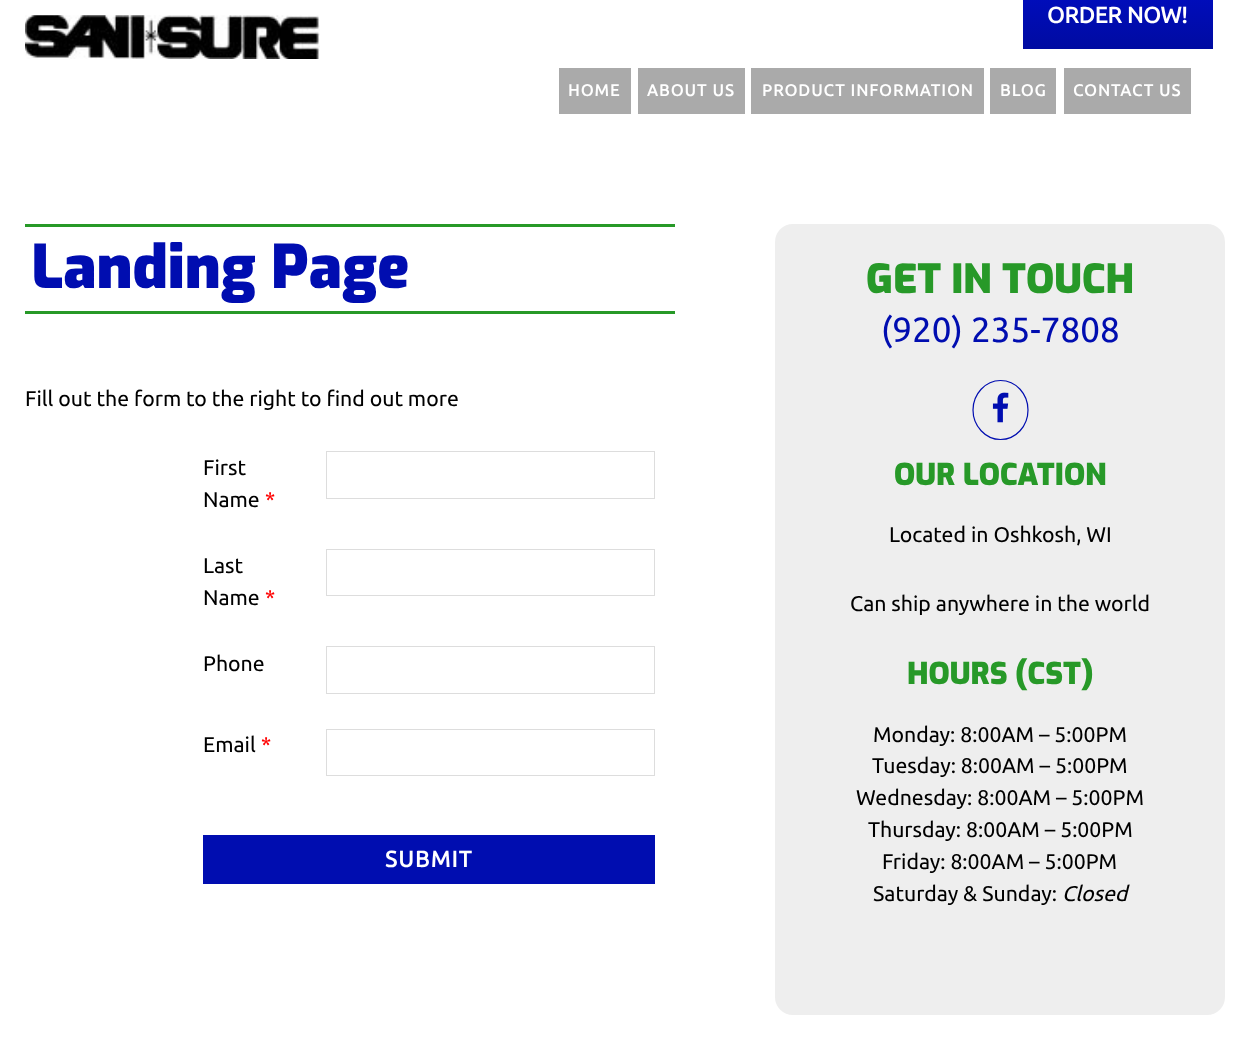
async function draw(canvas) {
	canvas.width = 1250;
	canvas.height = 1063;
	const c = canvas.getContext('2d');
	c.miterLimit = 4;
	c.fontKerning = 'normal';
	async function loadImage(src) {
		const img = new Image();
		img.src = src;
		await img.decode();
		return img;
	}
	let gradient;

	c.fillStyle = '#fff';
	c.fillRect(0, 0, 1250, 1063);
	c.drawImage(await loadImage('img1.png'), 25, 15, 295, 44);
	gradient = c.createLinearGradient(1118, -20, 1118, 49);
	gradient.addColorStop(0, '#000dc4');
	gradient.addColorStop(1, '#000ba1');
	c.fillStyle = gradient;
	c.fillRect(1023, 0, 190, 49);
	c.font = 'bold 22.5px Ubuntu';
	c.fillStyle = '#fff';
	c.fillText('ORDER NOW!', 1047, 23);
	c.fillStyle = '#aaa';
	c.fillRect(559, 68, 72, 46);
	c.letterSpacing = '1.25px';
	c.font = 'bold 16.25px Ubuntu';
	c.fillStyle = '#fff';
	c.fillText('HOME', 568, 96);
	c.fillStyle = '#aaa';
	c.fillRect(638, 68, 107, 46);
	c.fillStyle = '#fff';
	c.fillText('ABOUT US', 647, 96);
	c.fillStyle = '#aaa';
	c.fillRect(751, 68, 233, 46);
	c.fillStyle = '#fff';
	c.fillText('PRODUCT INFORMATION', 762, 96);
	c.fillStyle = '#aaa';
	c.fillRect(990, 68, 66, 46);
	c.fillStyle = '#fff';
	c.fillText('BLOG', 1000, 96);
	c.fillStyle = '#aaa';
	c.fillRect(1064, 68, 127, 46);
	c.fillStyle = '#fff';
	c.fillText('CONTACT US', 1073, 96);
	c.fillStyle = '#279928';
	c.fillRect(25, 224, 650, 3);
	c.fillRect(25, 311, 650, 3);
	c.letterSpacing = '0px';
	c.font = '900 60px Exo';
	c.fillStyle = '#000db0';
	c.fillText('Landing Page', 31, 288);
	c.font = '21.25px Ubuntu';
	c.fillStyle = '#000';
	for (const [text, x, y] of [
		['Fill out the form to the right to find out more', 25, 406],
		['First', 203, 475],
		['Name', 203, 507],
	]) {
		c.fillText(text, x, y);
	}
	c.fillStyle = '#f00';
	c.fillText('*', 265, 507);
	c.strokeStyle = '#ddd';
	c.strokeRect(326.5, 451.5, 328, 47);
	c.fillStyle = '#000';
	c.fillText('Last', 203, 573);
	c.fillText('Name', 203, 605);
	c.fillStyle = '#f00';
	c.fillText('*', 265, 605);
	c.strokeRect(326.5, 549.5, 328, 46);
	c.fillStyle = '#000';
	c.fillText('Phone', 203, 671);
	c.strokeRect(326.5, 646.5, 328, 47);
	c.fillText('Email', 203, 752);
	c.fillStyle = '#f00';
	c.fillText('*', 261, 752);
	c.strokeRect(326.5, 729.5, 328, 46);
	c.fillStyle = '#000db0';
	c.fillRect(203, 835, 452, 49);
	c.letterSpacing = '1.25px';
	c.font = 'bold 22.5px Ubuntu';
	c.fillStyle = '#fff';
	c.fillText('SUBMIT', 385, 867);
	c.fillStyle = '#eee';
	c.beginPath();
	c.roundRect(775, 224, 450, 791, 18);
	c.fill();
	c.letterSpacing = '0px';
	c.font = '900 40px Exo';
	c.fillStyle = '#279928';
	c.fillText('GET IN TOUCH', 866, 293);
	c.font = '35px Ubuntu';
	c.fillStyle = '#000db0';
	c.fillText('(920) 235-7808', 881, 342);
	c.beginPath();
	c.moveTo(1000.5, 380.5);
	c.bezierCurveTo(1016, 380.5, 1028, 394, 1028, 410);
	c.bezierCurveTo(1028, 426, 1016, 439.5, 1000.5, 439.5);
	c.bezierCurveTo(985.5, 439.5, 973, 426, 973, 410);
	c.bezierCurveTo(973, 394, 985.5, 380.5, 1000.5, 380.5);
	c.closePath();
	c.strokeStyle = '#000db0';
	c.lineWidth = 1.2;
	c.stroke();
	c.drawImage(await loadImage('img2.png'), 992, 392, 17, 31);
	c.font = '900 30px Exo';
	c.fillStyle = '#279928';
	c.fillText('OUR LOCATION', 894, 485);
	c.font = '21.25px Ubuntu';
	c.fillStyle = '#000';
	c.fillText('Located in Oshkosh, WI', 889, 542);
	c.fillText('Can ship anywhere in the world', 850, 611);
	c.font = '900 30px Exo';
	c.fillStyle = '#279928';
	c.fillText('HOURS (CST)', 907, 684);
	c.font = '21.25px Ubuntu';
	c.fillStyle = '#000';
	for (const [text, x, y] of [
		['Monday: 8:00AM – 5:00PM', 873, 742],
		['Tuesday: 8:00AM – 5:00PM', 872, 773],
		['Wednesday: 8:00AM – 5:00PM', 856, 805],
		['Thursday: 8:00AM – 5:00PM', 868, 837],
		['Friday: 8:00AM – 5:00PM', 882, 869],
		['Saturday & Sunday:', 873, 901],
	]) {
		c.fillText(text, x, y);
	}
	c.font = 'italic 21.25px Ubuntu';
	c.fillText('Closed', 1062, 901);
}

draw(document.querySelector('canvas'));
